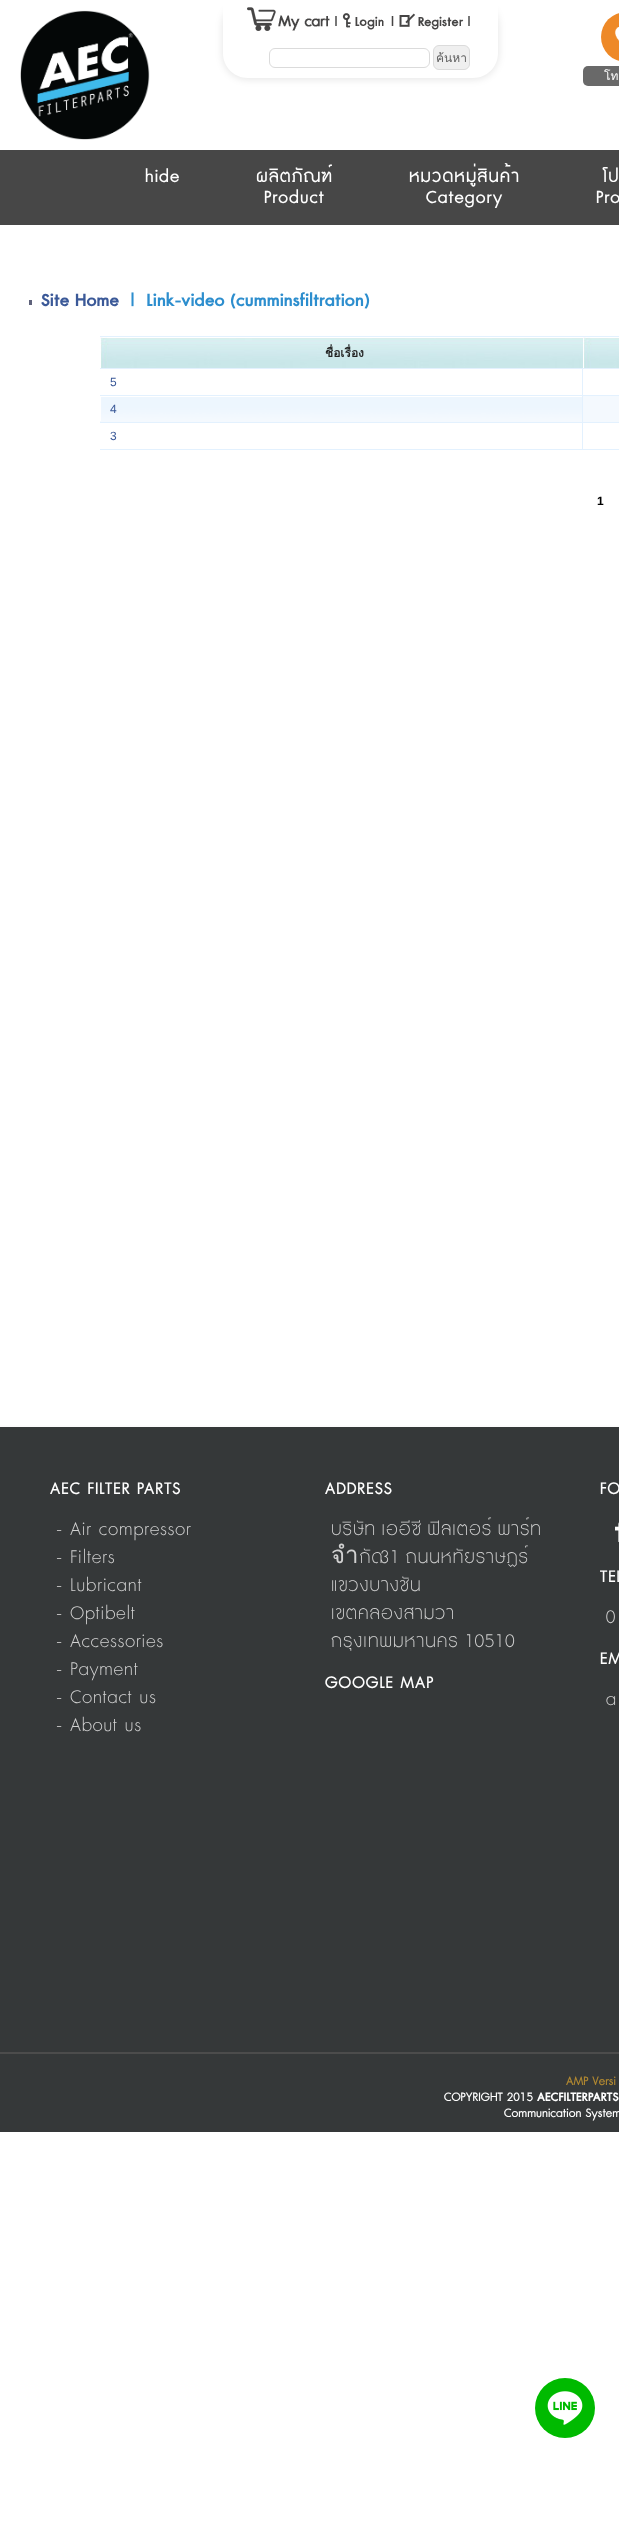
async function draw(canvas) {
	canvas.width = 619;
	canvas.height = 2538;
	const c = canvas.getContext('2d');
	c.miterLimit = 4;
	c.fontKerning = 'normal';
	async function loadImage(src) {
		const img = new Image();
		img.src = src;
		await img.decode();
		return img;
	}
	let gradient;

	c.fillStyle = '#fff';
	c.fillRect(0, 0, 619, 2538);
	c.drawImage(await loadImage('img1.png'), 20, 10, 130, 130);
	c.save();
	c.beginPath();
	c.moveTo(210, 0);
	c.lineTo(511, 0);
	c.lineTo(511, 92);
	c.lineTo(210, 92);
	c.closePath();
	c.moveTo(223, 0);
	c.lineTo(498, 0);
	c.lineTo(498, 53);
	c.bezierCurveTo(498, 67, 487, 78, 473, 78);
	c.lineTo(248, 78);
	c.bezierCurveTo(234, 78, 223, 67, 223, 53);
	c.closePath();
	c.clip('evenodd');
	c.fillStyle = '#00000017';
	c.filter = 'blur(3.5px)';
	c.beginPath();
	c.roundRect(222, 0, 277, 80, 26);
	c.fill();
	c.filter = 'none';
	c.restore();
	c.drawImage(await loadImage('img2.png'), 247, 7, 223, 24);
	c.beginPath();
	c.roundRect(269.5, 48.5, 160, 19, 5.5);
	c.strokeStyle = '#dbdbdb';
	c.stroke();
	c.fillStyle = '#efefef';
	c.beginPath();
	c.roundRect(433.5, 45.5, 36, 24, 5.5);
	c.fill();
	c.stroke();
	c.save();
	c.beginPath();
	c.roundRect(434, 46, 35, 23, 5);
	c.clip();
	c.font = '12px Loma';
	c.fillStyle = '#606060';
	c.fillText('ค้นหา', 436, 62);
	c.restore();
	c.drawImage(await loadImage('img3.png'), 601, 13, 18, 48);
	c.fillStyle = '#696969';
	c.beginPath();
	c.roundRect(583, 66, 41, 20, 5);
	c.fill();
	c.font = '12px Loma';
	c.fillStyle = '#fff';
	c.fillText('โท', 604, 80);
	c.fillStyle = '#474747';
	c.fillRect(0, 150, 619, 75);
	c.letterSpacing = '1px';
	c.font = '23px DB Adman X';
	c.fillStyle = '#fff';
	for (const [text, x, y] of [
		['hide', 145, 182],
		['ผลิตภัณฑ์', 256, 182],
		['Product', 264, 203],
		['หมวดหมู่สินค้า', 409, 182],
		['Category', 426, 203],
		['โป', 603, 182],
		['Pro', 596, 203],
	]) {
		c.fillText(text, x, y);
	}
	c.fillStyle = '#5e627b';
	c.fillRect(29, 300, 3, 5);
	c.letterSpacing = '0px';
	c.font = 'bold 23px DB Adman X';
	c.fillStyle = '#3b5998';
	c.fillText('Site Home', 41, 306);
	c.fillStyle = '#2d8ece';
	c.fillText('|  Link-video (cumminsfiltration)', 130, 306);
	c.drawImage(await loadImage('img4.png'), 100, 337, 483, 31);
	c.fillStyle = '#e3f1fe';
	c.fillRect(100, 336, 519, 1);
	c.fillRect(100, 368, 519, 1);
	c.font = 'bold 12px Loma';
	c.fillStyle = '#232323';
	c.fillText('ชื่อเรื่อง', 325, 357);
	c.drawImage(await loadImage('img5.png'), 583, 337, 36, 31);
	c.fillStyle = '#e3f1fe';
	c.fillRect(582, 369, 1, 27);
	c.fillRect(100, 395, 519, 1);
	c.font = '12px Liberation Sans';
	c.fillStyle = '#3b5998';
	c.fillText('5', 110, 386);
	c.fillStyle = '#f4f9fe';
	c.fillRect(100, 396, 519, 26);
	c.drawImage(await loadImage('img6.png'), 100, 396, 482, 25);
	c.fillStyle = '#e3f1fe';
	c.fillRect(582, 396, 1, 54);
	c.fillRect(100, 422, 519, 1);
	c.fillStyle = '#3b5998';
	c.fillText('4', 110, 413);
	c.fillStyle = '#e3f1fe';
	c.fillRect(100, 449, 519, 1);
	c.fillStyle = '#3b5998';
	c.fillText('3', 110, 440);
	c.font = 'bold 12px Liberation Sans';
	c.fillStyle = '#000';
	c.fillText('1', 597, 505);
	c.fillStyle = '#00ba00';
	c.beginPath();
	c.arc(565, 2408, 30, 0, 2 * Math.PI);
	c.fill();
	c.drawImage(await loadImage('img7.png'), 547, 2391, 36, 34);
	gradient = c.createLinearGradient(600, 1425, 600, 2132);
	gradient.addColorStop(0, '#f6f6f6');
	gradient.addColorStop(1, '#fddcf3');
	c.fillStyle = gradient;
	c.fillRect(0, 1425, 619, 2);
	gradient = c.createLinearGradient(600, 1425, 600, 2054);
	gradient.addColorStop(0.1, '#ffffffa3');
	gradient.addColorStop(0.81, '#4c4c4c');
	c.fillStyle = gradient;
	c.fillRect(0, 1425, 619, 629);
	c.fillStyle = '#353839';
	c.fillRect(0, 1427, 619, 625);
	c.letterSpacing = '1px';
	c.font = '22px DB Adman X';
	c.fillStyle = '#fff';
	c.fillText('AEC FILTER PARTS', 50, 1494);
	c.font = '300 24px DB Adman X';
	c.fillStyle = '#d1d1d1';
	for (const [text, x, y] of [
		['- Air compressor', 56, 1535],
		['- Filters', 56, 1563],
		['- Lubricant', 56, 1591],
		['- Optibelt', 56, 1619],
		['- Accessories', 56, 1647],
		['- Payment', 56, 1675],
		['- Contact us', 56, 1703],
		['- About us', 56, 1731],
	]) {
		c.fillText(text, x, y);
	}
	c.font = '22px DB Adman X';
	c.fillStyle = '#fff';
	c.fillText('ADDRESS', 325, 1494);
	c.wordSpacing = '-1.5px';
	c.font = '300 24px DB Adman X';
	c.fillStyle = '#d1d1d1';
	c.fillText('บริษัท เออีซี ฟิลเตอร์ พาร์ท', 331, 1535);
	c.wordSpacing = '0px';
	c.fillText('จำกัด', 331, 1563);
	c.wordSpacing = '-1.5px';
	c.fillText('31 ถนนหทัยราษฏร์', 380, 1563);
	c.wordSpacing = '0px';
	c.fillText('แขวงบางชัน', 331, 1591);
	c.fillText('เขตคลองสามวา', 331, 1619);
	c.wordSpacing = '-1px';
	c.fillText('กรุงเทพมหานคร 10510', 331, 1647);
	c.wordSpacing = '0px';
	c.font = '22px DB Adman X';
	c.fillStyle = '#fff';
	c.fillText('GOOGLE MAP', 325, 1688);
	c.fillText('FO', 600, 1494);
	c.drawImage(await loadImage('img8.png'), 615, 1522, 4, 20);
	c.fillText('TEL', 600, 1582);
	c.font = '300 24px DB Adman X';
	c.fillStyle = '#d1d1d1';
	c.fillText('0', 606, 1623);
	c.font = '22px DB Adman X';
	c.fillStyle = '#fff';
	c.fillText('EM', 600, 1664);
	c.font = '300 24px DB Adman X';
	c.fillStyle = '#d1d1d1';
	c.fillText('a', 606, 1705);
	c.fillStyle = '#353839';
	c.fillRect(0, 2054, 619, 78);
	c.letterSpacing = '0px';
	c.font = '16px DB Adman X';
	c.fillStyle = '#af8731';
	c.fillText('AMP Versi', 566, 2085);
	c.fillStyle = '#fff';
	c.fillText('COPYRIGHT 2015', 444, 2101);
	c.font = 'bold 16px DB Adman X';
	c.fillText('AECFILTERPARTS', 537, 2101);
	c.font = '16px DB Adman X';
	c.fillText('Communication System', 504, 2117);
}

draw(document.querySelector('canvas'));
